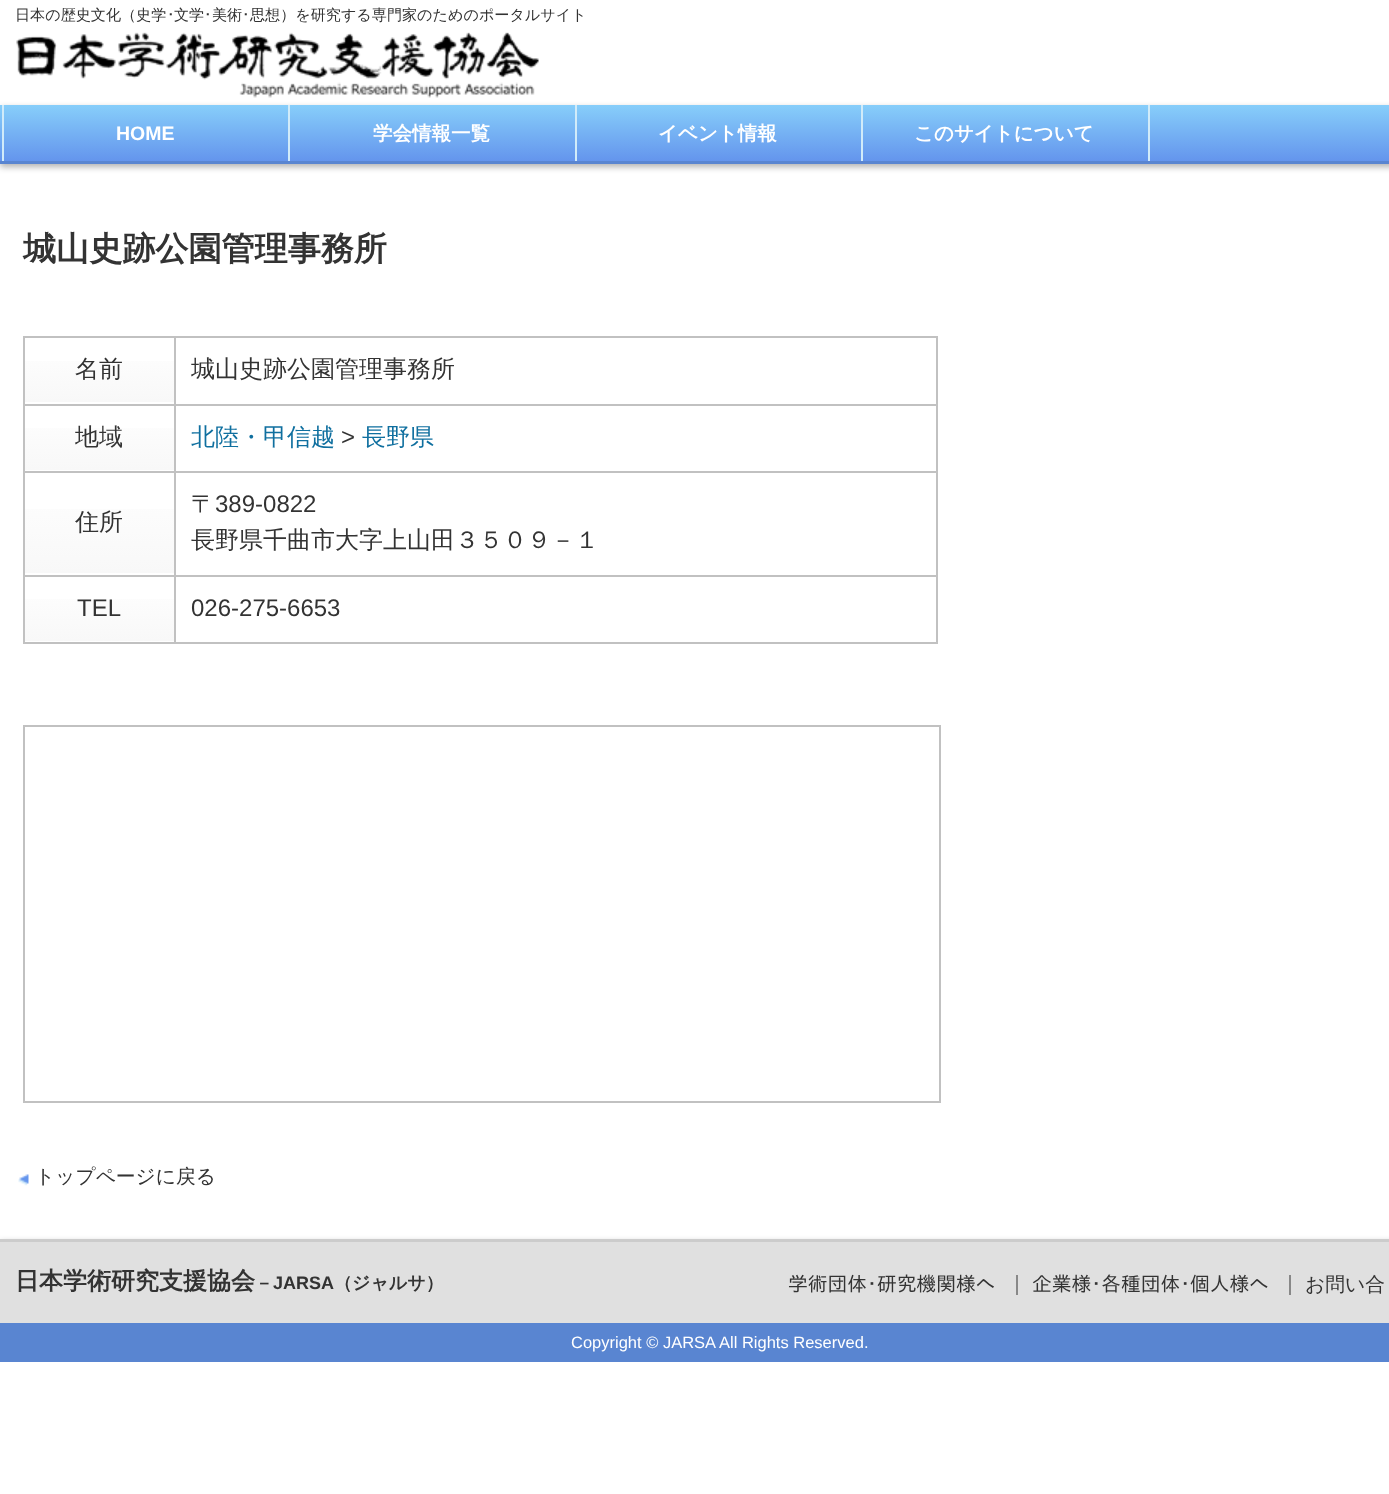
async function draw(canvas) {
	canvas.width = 1389;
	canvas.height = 1494;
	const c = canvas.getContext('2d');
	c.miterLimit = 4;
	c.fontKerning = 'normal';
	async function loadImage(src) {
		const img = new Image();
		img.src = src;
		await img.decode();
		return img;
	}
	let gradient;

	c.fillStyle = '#fff';
	c.fillRect(0, 0, 1389, 1494);
	c.font = '500 15.1px WenQuanYi Zen Hei';
	c.fillStyle = '#333';
	c.fillText('日本の歴史文化（史学', 15, 20);
	c.font = '15.1px IPAPGothic';
	c.fillText('･', 167, 20);
	c.font = '500 15.1px WenQuanYi Zen Hei';
	c.fillText('文学', 174, 20);
	c.font = '15.1px IPAPGothic';
	c.fillText('･', 204, 20);
	c.font = '500 15.1px WenQuanYi Zen Hei';
	c.fillText('美術', 212, 20);
	c.font = '15.1px IPAPGothic';
	c.fillText('･', 242, 20);
	c.font = '500 15.1px WenQuanYi Zen Hei';
	c.fillText('思想）を研究する専門家のためのポータルサイト', 250, 20);
	c.drawImage(await loadImage('img1.png'), 16, 32, 523, 66);
	c.fillStyle = '#0000004d';
	c.filter = 'blur(3px)';
	c.beginPath();
	c.rect(0, 108, 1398, 59);
	c.fill();
	c.filter = 'none';
	gradient = c.createLinearGradient(720, 105, 720, 161);
	gradient.addColorStop(0, '#87cefa');
	gradient.addColorStop(1, '#6495ed');
	c.fillStyle = gradient;
	c.fillRect(0, 105, 1389, 56);
	for (const [x, y, w, h, color] of [
		[0, 161, 1389, 3, '#5985d1'],
		[2, 105, 2, 56, '#d1ebf9'],
		[288, 105, 2, 56, '#d1ebf9'],
	]) {
		c.fillStyle = color;
		c.fillRect(x, y, w, h);
	}
	c.font = 'bold 19.5px Liberation Sans';
	c.fillStyle = '#fff';
	c.fillText('HOME', 116, 140);
	c.fillStyle = '#d1ebf9';
	c.fillRect(575, 105, 2, 56);
	c.font = 'bold 19.5px WenQuanYi Zen Hei';
	c.fillStyle = '#fff';
	c.fillText('学会情報一覧', 373, 140);
	c.fillStyle = '#d1ebf9';
	c.fillRect(861, 105, 2, 56);
	c.fillStyle = '#fff';
	c.fillText('イベント情報', 658, 140);
	c.fillStyle = '#d1ebf9';
	c.fillRect(1148, 105, 2, 56);
	c.fillStyle = '#fff';
	c.fillText('このサイトについて', 914, 140);
	c.font = 'bold 33.1px WenQuanYi Zen Hei';
	c.fillStyle = '#333';
	c.fillText('城山史跡公園管理事務所', 23, 260);
	gradient = c.createLinearGradient(26, 338, 26, 402);
	gradient.addColorStop(0, '#fff');
	gradient.addColorStop(1, '#f8f8f8');
	c.fillStyle = gradient;
	c.fillRect(25, 361, 149, 41);
	for (const [x, y, w, h, color] of [
		[174, 336, 764, 2, '#c1c1c1'],
		[174, 404, 764, 2, '#c1c1c1'],
		[174, 471, 764, 2, '#c1c1c1'],
		[174, 575, 764, 2, '#c1c1c1'],
		[936, 575, 2, 69, '#c1c1c1'],
		[174, 642, 764, 2, '#c1c1c1'],
		[174, 575, 2, 69, '#c1c1c1'],
		[23, 575, 153, 2, '#c1c1c1'],
		[174, 471, 2, 105, '#c1c1c1'],
		[23, 471, 153, 2, '#c1c1c1'],
		[174, 404, 2, 69, '#c1c1c1'],
		[23, 404, 153, 2, '#c1c1c1'],
		[174, 336, 2, 69, '#c1c1c1'],
		[23, 336, 153, 2, '#c1c1c1'],
		[23, 642, 153, 2, '#c1c1c1'],
		[23, 575, 2, 69, '#c1c1c1'],
		[23, 471, 2, 105, '#c1c1c1'],
		[23, 404, 2, 69, '#c1c1c1'],
		[23, 336, 2, 69, '#c1c1c1'],
	]) {
		c.fillStyle = color;
		c.fillRect(x, y, w, h);
	}
	c.font = '500 24px WenQuanYi Zen Hei';
	c.fillStyle = '#333';
	c.fillText('名前', 75, 377);
	for (const [x, y, w, h, color] of [
		[936, 471, 2, 105, '#c1c1c1'],
		[936, 404, 2, 69, '#c1c1c1'],
		[936, 336, 2, 69, '#c1c1c1'],
	]) {
		c.fillStyle = color;
		c.fillRect(x, y, w, h);
	}
	c.fillStyle = '#333';
	c.fillText('城山史跡公園管理事務所', 191, 377);
	gradient = c.createLinearGradient(26, 405, 26, 470);
	gradient.addColorStop(0, '#fff');
	gradient.addColorStop(1, '#f8f8f8');
	c.fillStyle = gradient;
	c.fillRect(25, 428, 149, 42);
	c.fillStyle = '#333';
	c.fillText('地域', 75, 445);
	c.fillStyle = '#0f6f9f';
	c.fillText('北陸・甲信越', 191, 445);
	c.font = '24px Liberation Sans';
	c.fillStyle = '#333';
	c.fillText('>', 341, 445);
	c.font = '500 24px WenQuanYi Zen Hei';
	c.fillStyle = '#0f6f9f';
	c.fillText('長野県', 362, 445);
	gradient = c.createLinearGradient(26, 473, 26, 573);
	gradient.addColorStop(0, '#fff');
	gradient.addColorStop(1, '#f8f8f8');
	c.fillStyle = gradient;
	c.fillRect(25, 509, 149, 64);
	c.fillStyle = '#333';
	c.fillText('住所', 75, 530);
	c.fillText('〒', 191, 512);
	c.font = '24px Liberation Sans';
	c.fillText('389-0822', 215, 512);
	c.font = '500 24px WenQuanYi Zen Hei';
	c.fillText('長野県千曲市大字上山田３５０９－１', 191, 548);
	gradient = c.createLinearGradient(26, 576, 26, 641);
	gradient.addColorStop(0, '#fff');
	gradient.addColorStop(1, '#f8f8f8');
	c.fillStyle = gradient;
	c.fillRect(25, 599, 149, 42);
	c.font = '24px Liberation Sans';
	c.fillStyle = '#333';
	c.fillText('TEL', 77, 616);
	c.fillText('026-275-6653', 191, 616);
	c.strokeStyle = '#c1c1c1';
	c.lineWidth = 2;
	c.strokeRect(24, 726, 916, 376);
	c.drawImage(await loadImage('img2.png'), 18, 1174, 11, 12);
	c.font = '500 19.75px WenQuanYi Zen Hei';
	c.fillText('トップページに戻る', 35, 1183);
	c.fillStyle = '#0000004d';
	c.filter = 'blur(3px)';
	c.beginPath();
	c.rect(0, 1242, 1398, 84);
	c.fill();
	c.filter = 'none';
	c.fillStyle = '#e0e0e0';
	c.fillRect(0, 1242, 1389, 81);
	c.fillStyle = '#ccc';
	c.fillRect(0, 1239, 1389, 3);
	c.font = 'bold 24px WenQuanYi Zen Hei';
	c.fillStyle = '#333';
	c.fillText('日本学術研究支援協会', 15, 1289);
	c.font = 'bold 18px WenQuanYi Zen Hei';
	c.fillText('－', 255, 1289);
	c.font = 'bold 18px Liberation Sans';
	c.fillText('JARSA', 273, 1289);
	c.font = 'bold 18px WenQuanYi Zen Hei';
	c.fillText('（ジャルサ）', 334, 1289);
	c.font = '19.75px IPAPGothic';
	c.fillText('学術団体･研究機関様へ', 788, 1291);
	c.fillStyle = '#888';
	c.fillRect(1016, 1275, 2, 20);
	c.fillStyle = '#333';
	c.fillText('企業様･各種団体･個人様へ', 1032, 1291);
	c.fillStyle = '#888';
	c.fillRect(1289, 1275, 2, 20);
	c.font = '500 19.75px WenQuanYi Zen Hei';
	c.fillStyle = '#333';
	c.fillText('お問い合', 1305, 1291);
	c.fillStyle = '#5985d1';
	c.fillRect(0, 1323, 1389, 39);
	c.font = '16.5px Liberation Sans';
	c.fillStyle = '#fff';
	c.fillText('Copyright © JARSA', 571, 1348);
	c.fillText('All Rights Reserved.', 719, 1348);
}

draw(document.querySelector('canvas'));
